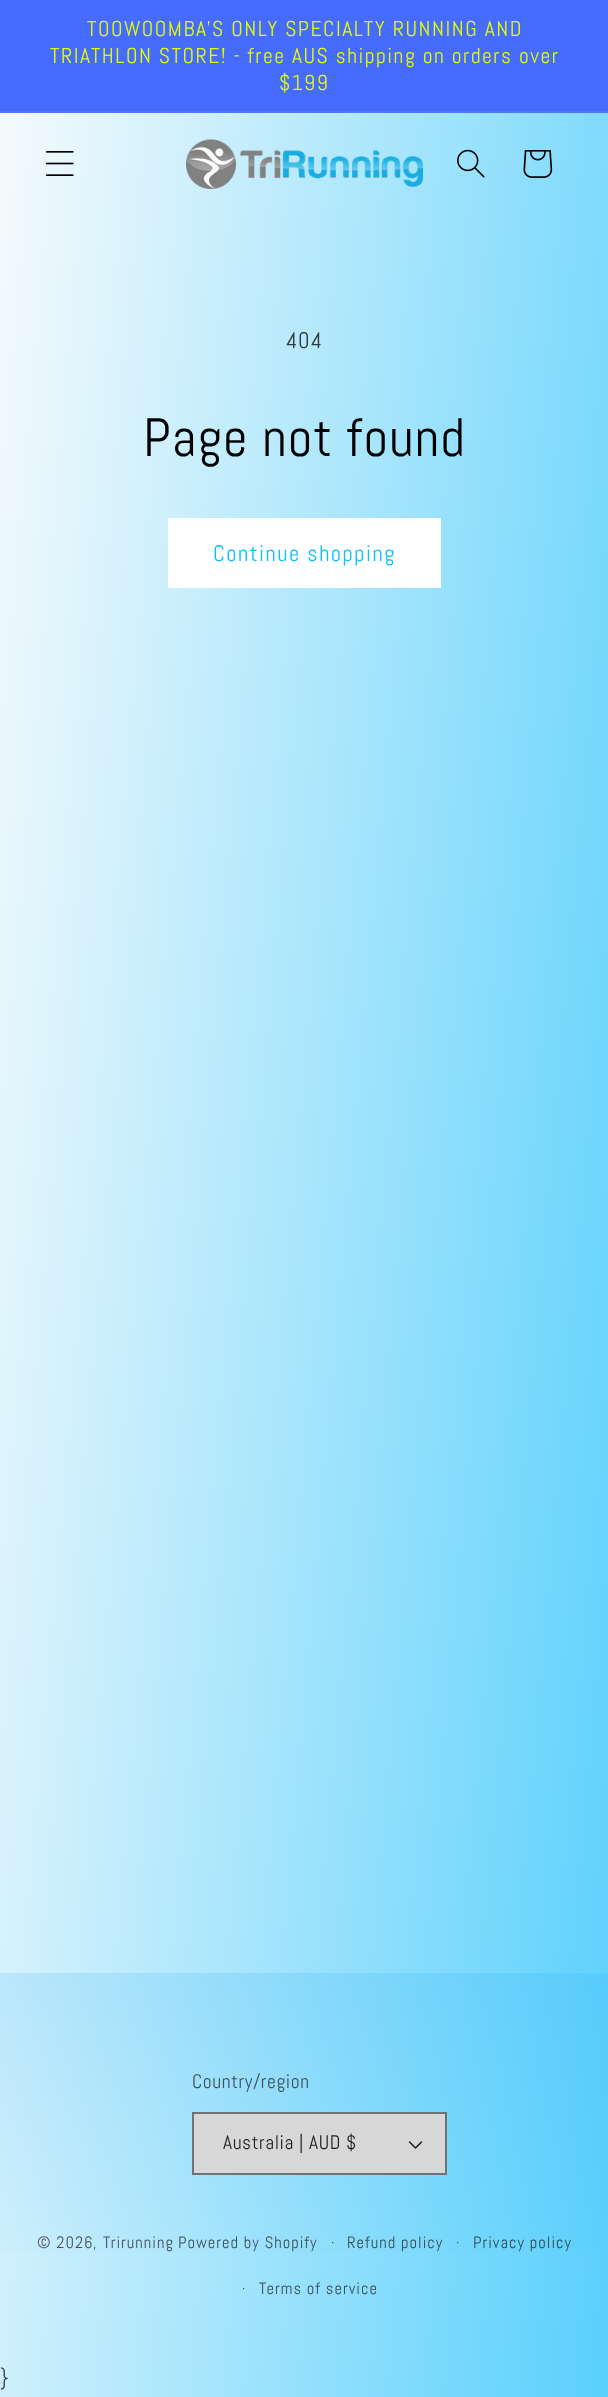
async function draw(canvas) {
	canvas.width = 608;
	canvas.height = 2397;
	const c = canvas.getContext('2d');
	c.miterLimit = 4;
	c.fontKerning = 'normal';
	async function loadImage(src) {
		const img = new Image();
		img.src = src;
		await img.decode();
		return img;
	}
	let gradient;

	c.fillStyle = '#fff';
	c.fillRect(0, 0, 608, 2397);
	gradient = c.createLinearGradient(-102, 1163, 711, 1234);
	gradient.addColorStop(0, '#f7fbfc');
	gradient.addColorStop(1, '#59d0fc');
	c.fillStyle = gradient;
	c.fillRect(0, 113, 608, 2284);
	c.fillStyle = '#456bff';
	c.fillRect(0, 0, 608, 111);
	c.fillStyle = '#5277eb';
	c.fillRect(0, 111, 608, 2);
	c.letterSpacing = '1.5px';
	c.font = '21.6px Abel';
	c.fillStyle = '#e3fc02';
	for (const [text, x, y] of [
		['TOOWOOMBA\'S ONLY SPECIALTY RUNNING AND', 87, 36],
		['TRIATHLON STORE! - free AUS shipping on orders over', 50, 63],
		['$199', 279, 90],
	]) {
		c.fillText(text, x, y);
	}
	c.drawImage(await loadImage('img1.png'), 45, 151, 29, 25);
	c.drawImage(await loadImage('img2.png'), 186, 139, 237, 50);
	c.drawImage(await loadImage('img3.png'), 457, 149, 28, 29);
	c.drawImage(await loadImage('img4.png'), 523, 150, 30, 28);
	c.letterSpacing = '1px';
	c.font = '22.5px Abel';
	c.fillStyle = '#2e3a3f';
	c.fillText('404', 286, 348);
	c.letterSpacing = '1.1px';
	c.font = '54px Abel';
	c.fillStyle = '#000';
	c.fillText('Page not found', 143, 456);
	c.fillStyle = '#fff';
	c.fillRect(168, 518, 273, 70);
	c.letterSpacing = '1.5px';
	c.font = '22.5px Abel';
	c.fillStyle = '#09c2f7';
	c.fillText('Continue shopping', 213, 561);
	gradient = c.createLinearGradient(305, 2397, 305, 0);
	gradient.addColorStop(0, '#60cbf203');
	gradient.addColorStop(0.04, '#60cbf200');
	gradient.addColorStop(0.04, '#1aa6f400');
	gradient.addColorStop(1, '#1aa6f4');
	c.fillStyle = gradient;
	c.fillRect(0, 1973, 608, 279);
	c.letterSpacing = '0.6px';
	c.font = '19.5px Abel';
	c.fillStyle = '#3f5058';
	c.fillText('Country/region', 192, 2088);
	c.fillStyle = '#d7d7d7';
	c.fillRect(194, 2114, 251, 59);
	c.drawImage(await loadImage('img5.png'), 408, 2141, 15, 8);
	c.strokeStyle = '#727273';
	c.lineWidth = 2;
	c.strokeRect(193, 2113, 253, 61);
	c.fillStyle = '#1f1f21';
	c.fillText('Australia | AUD $', 223, 2149);
	c.letterSpacing = '1px';
	c.font = '16.5px Abel';
	c.fillStyle = '#475258';
	c.fillText('© 2026,', 37, 2248);
	c.fillText('Trirunning', 103, 2248);
	c.fillStyle = '#3f5058';
	c.fillText('Powered by Shopify', 178, 2248);
	c.font = '15px Abel';
	c.fillText('·', 331, 2248);
	c.font = '16.5px Abel';
	c.fillStyle = '#384e58';
	c.fillText('Refund policy', 347, 2248);
	c.font = '15px Abel';
	c.fillText('·', 456, 2248);
	c.font = '16.5px Abel';
	c.fillStyle = '#324c58';
	c.fillText('Privacy policy', 473, 2248);
	c.font = '15px Abel';
	c.fillStyle = '#3f5058';
	c.fillText('·', 242, 2294);
	c.font = '16.5px Abel';
	c.fillText('Terms of service', 259, 2294);
	c.font = '22.5px Abel';
	c.fillStyle = '#343c3f';
	c.fillText('}', 0, 2385);
}

draw(document.querySelector('canvas'));
